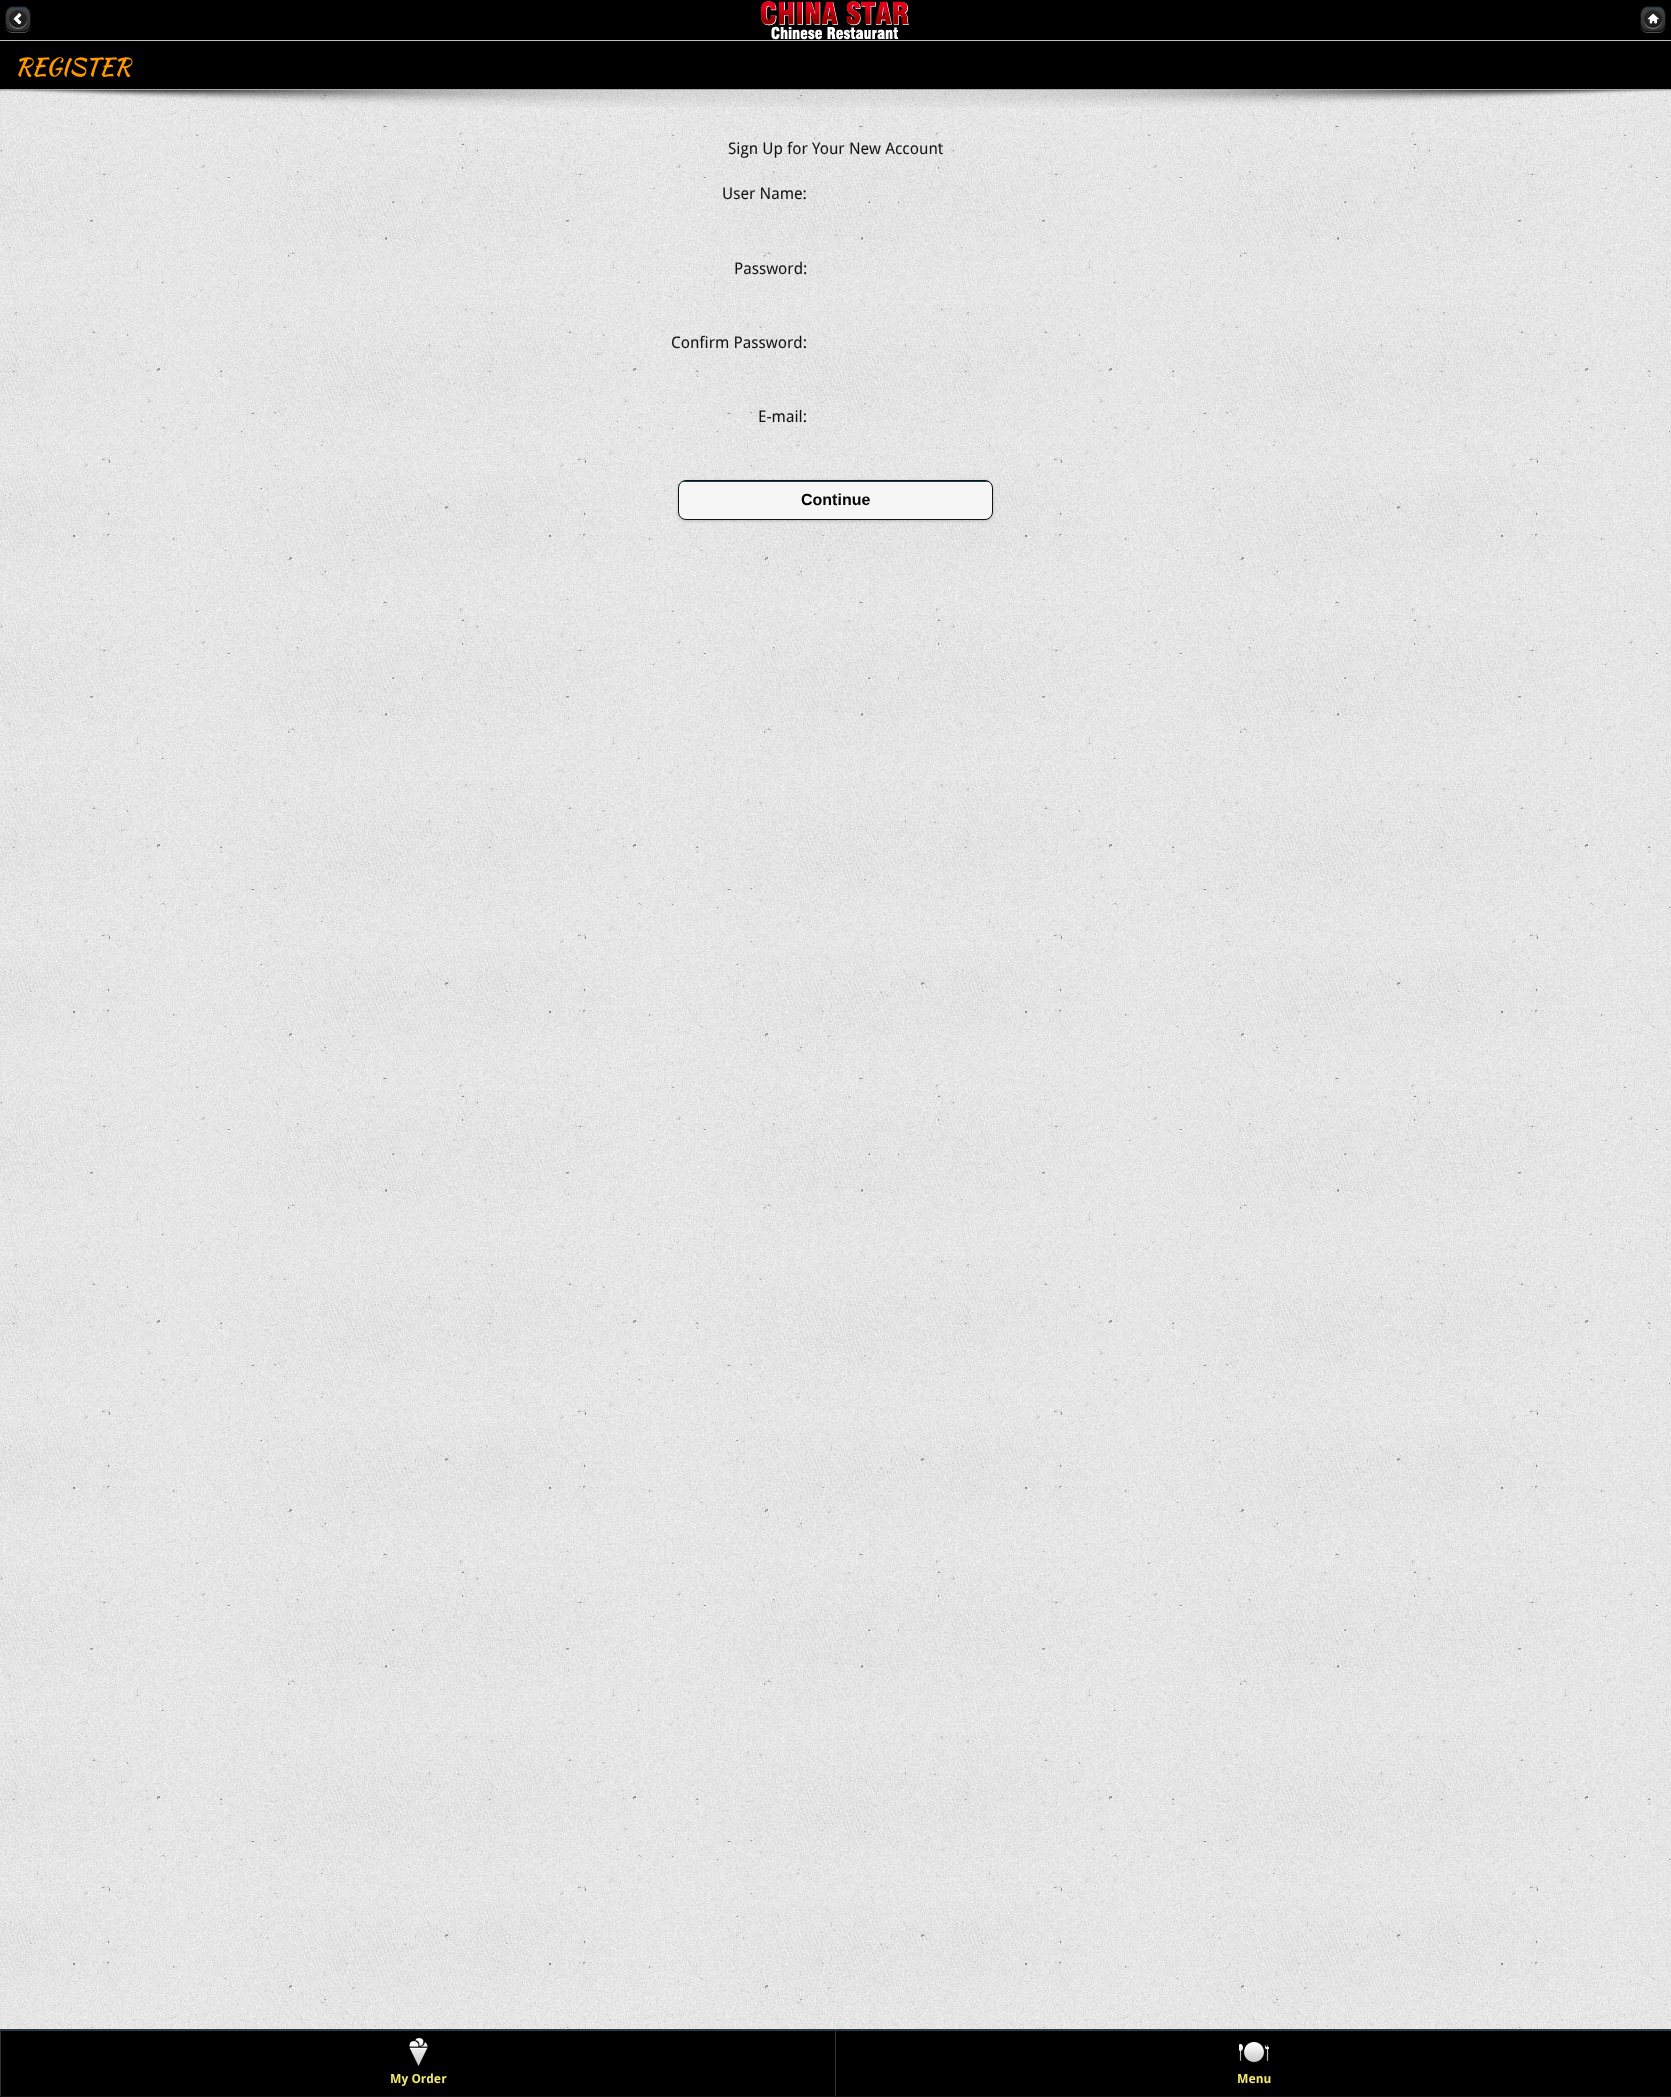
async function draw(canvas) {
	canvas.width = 1671;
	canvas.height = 2097;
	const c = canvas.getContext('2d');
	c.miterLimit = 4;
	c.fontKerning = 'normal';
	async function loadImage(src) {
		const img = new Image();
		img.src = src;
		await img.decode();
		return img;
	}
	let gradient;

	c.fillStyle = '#fff';
	c.fillRect(0, 0, 1671, 2097);
	c.drawImage(await loadImage('img1.png'), 0, 90, 1671, 1939);
	c.fillStyle = '#000';
	c.fillRect(0, 0, 1671, 40);
	c.fillStyle = '#bfc0c0';
	c.fillRect(0, 40, 1671, 1);
	c.fillStyle = '#4d4d4d';
	c.beginPath();
	c.moveTo(5, 24);
	c.bezierCurveTo(5, 28, 7, 32, 11.5, 33);
	c.lineTo(24.5, 33);
	c.bezierCurveTo(29, 32, 31, 28, 31, 24);
	c.bezierCurveTo(31, 28.5, 27.5, 32, 23, 32);
	c.lineTo(13, 32);
	c.bezierCurveTo(8.5, 32, 5, 28.5, 5, 24);
	c.closePath();
	c.fill();
	gradient = c.createLinearGradient(18, 7, 18, 31);
	gradient.addColorStop(0, '#444');
	gradient.addColorStop(1, '#2d2d2d');
	c.fillStyle = gradient;
	c.beginPath();
	c.roundRect(6, 7, 24, 24, 7);
	c.fill();
	c.beginPath();
	c.roundRect(5.5, 6.5, 25, 25, 7.5);
	c.strokeStyle = '#111';
	c.stroke();
	c.fillStyle = '#1a3d4f';
	c.fillRect(10, 7, 16, 1);
	c.fillStyle = '#ffffff66';
	c.beginPath();
	c.moveTo(9, 19.5);
	c.bezierCurveTo(8.5, 32, 27.5, 32, 27, 19.5);
	c.bezierCurveTo(26.5, 30.5, 9.5, 30.5, 9, 19.5);
	c.closePath();
	c.fill();
	c.fillStyle = '#00000066';
	c.beginPath();
	c.arc(18, 19, 9, 0, 2 * Math.PI);
	c.fill();
	c.drawImage(await loadImage('img2.png'), 13, 13, 9, 12);
	c.drawImage(await loadImage('img3.png'), 761, 1, 148, 39);
	c.fillStyle = '#4d4d4d';
	c.beginPath();
	c.moveTo(1640, 24);
	c.bezierCurveTo(1640, 28, 1642, 32, 1646.5, 33);
	c.lineTo(1659.5, 33);
	c.bezierCurveTo(1664, 32, 1666, 28, 1666, 24);
	c.bezierCurveTo(1666, 28.5, 1662.5, 32, 1658, 32);
	c.lineTo(1648, 32);
	c.bezierCurveTo(1643.5, 32, 1640, 28.5, 1640, 24);
	c.closePath();
	c.fill();
	gradient = c.createLinearGradient(1653, 7, 1653, 31);
	gradient.addColorStop(0, '#444');
	gradient.addColorStop(1, '#2d2d2d');
	c.fillStyle = gradient;
	c.beginPath();
	c.roundRect(1641, 7, 24, 24, 7);
	c.fill();
	c.beginPath();
	c.roundRect(1640.5, 6.5, 25, 25, 7.5);
	c.stroke();
	c.fillStyle = '#1a3d4f';
	c.fillRect(1645, 7, 16, 1);
	c.fillStyle = '#ffffff66';
	c.beginPath();
	c.moveTo(1662, 19.5);
	c.bezierCurveTo(1661.5, 30.5, 1644.5, 30.5, 1644, 19.5);
	c.bezierCurveTo(1643.5, 32, 1662.5, 32, 1662, 19.5);
	c.closePath();
	c.fill();
	c.fillStyle = '#00000066';
	c.beginPath();
	c.arc(1653, 19, 9, 0, 2 * Math.PI);
	c.fill();
	c.drawImage(await loadImage('img4.png'), 1647, 13, 12, 11);
	c.fillStyle = '#000';
	c.fillRect(0, 41, 1671, 48);
	c.fillStyle = '#aaa';
	c.fillRect(0, 89, 1671, 1);
	c.font = '24px Kaushan Script';
	c.fillStyle = '#f90';
	c.fillText('REGISTER', 15, 75);
	c.drawImage(await loadImage('img5.png'), 0, 90, 1671, 17);
	c.font = '16px Droid Sans';
	c.fillStyle = '#111';
	for (const [text, x, y] of [
		['Sign Up for Your New Account', 728, 154],
		['User Name:', 722, 199],
		['Password:', 734, 274],
		['Confirm Password:', 671, 348],
		['E-mail:', 758, 422],
	]) {
		c.fillText(text, x, y);
	}
	c.fillStyle = '#00000033';
	c.filter = 'blur(1.5px)';
	c.beginPath();
	c.roundRect(678, 481, 315, 40, 8);
	c.fill();
	c.filter = 'none';
	c.fillStyle = '#f6f6f6';
	c.beginPath();
	c.roundRect(678.5, 480.5, 314, 39, 7.5);
	c.fill();
	c.stroke();
	c.fillStyle = '#1a3d4f';
	c.fillRect(683, 481, 305, 1);
	c.font = 'bold 16px Liberation Sans';
	c.fillStyle = '#000';
	c.fillText('Continue', 801, 505);
	gradient = c.createLinearGradient(836, 2030, 836, 2097);
	gradient.addColorStop(0, '#3c3c3c');
	gradient.addColorStop(1, '#111');
	c.fillStyle = gradient;
	c.fillRect(0, 2096, 1671, 1);
	for (const [x, y, w, h, color] of [
		[0, 2029, 1671, 1, '#333'],
		[1, 2031, 834, 65, '#000'],
		[0, 2030, 1, 66, '#333'],
		[1, 2030, 1670, 1, '#1a3d4f'],
	]) {
		c.fillStyle = color;
		c.fillRect(x, y, w, h);
	}
	c.drawImage(await loadImage('img6.png'), 409, 2037, 19, 29);
	c.font = 'bold 12.5px Droid Sans';
	c.fillStyle = '#ede574';
	c.fillText('My Order', 390, 2083);
	c.fillStyle = '#000';
	c.fillRect(836, 2031, 835, 65);
	c.fillStyle = '#333';
	c.fillRect(835, 2030, 1, 66);
	c.drawImage(await loadImage('img7.png'), 1239, 2041, 30, 21);
	c.fillStyle = '#ede574';
	c.fillText('Menu', 1237, 2083);
}

draw(document.querySelector('canvas'));
